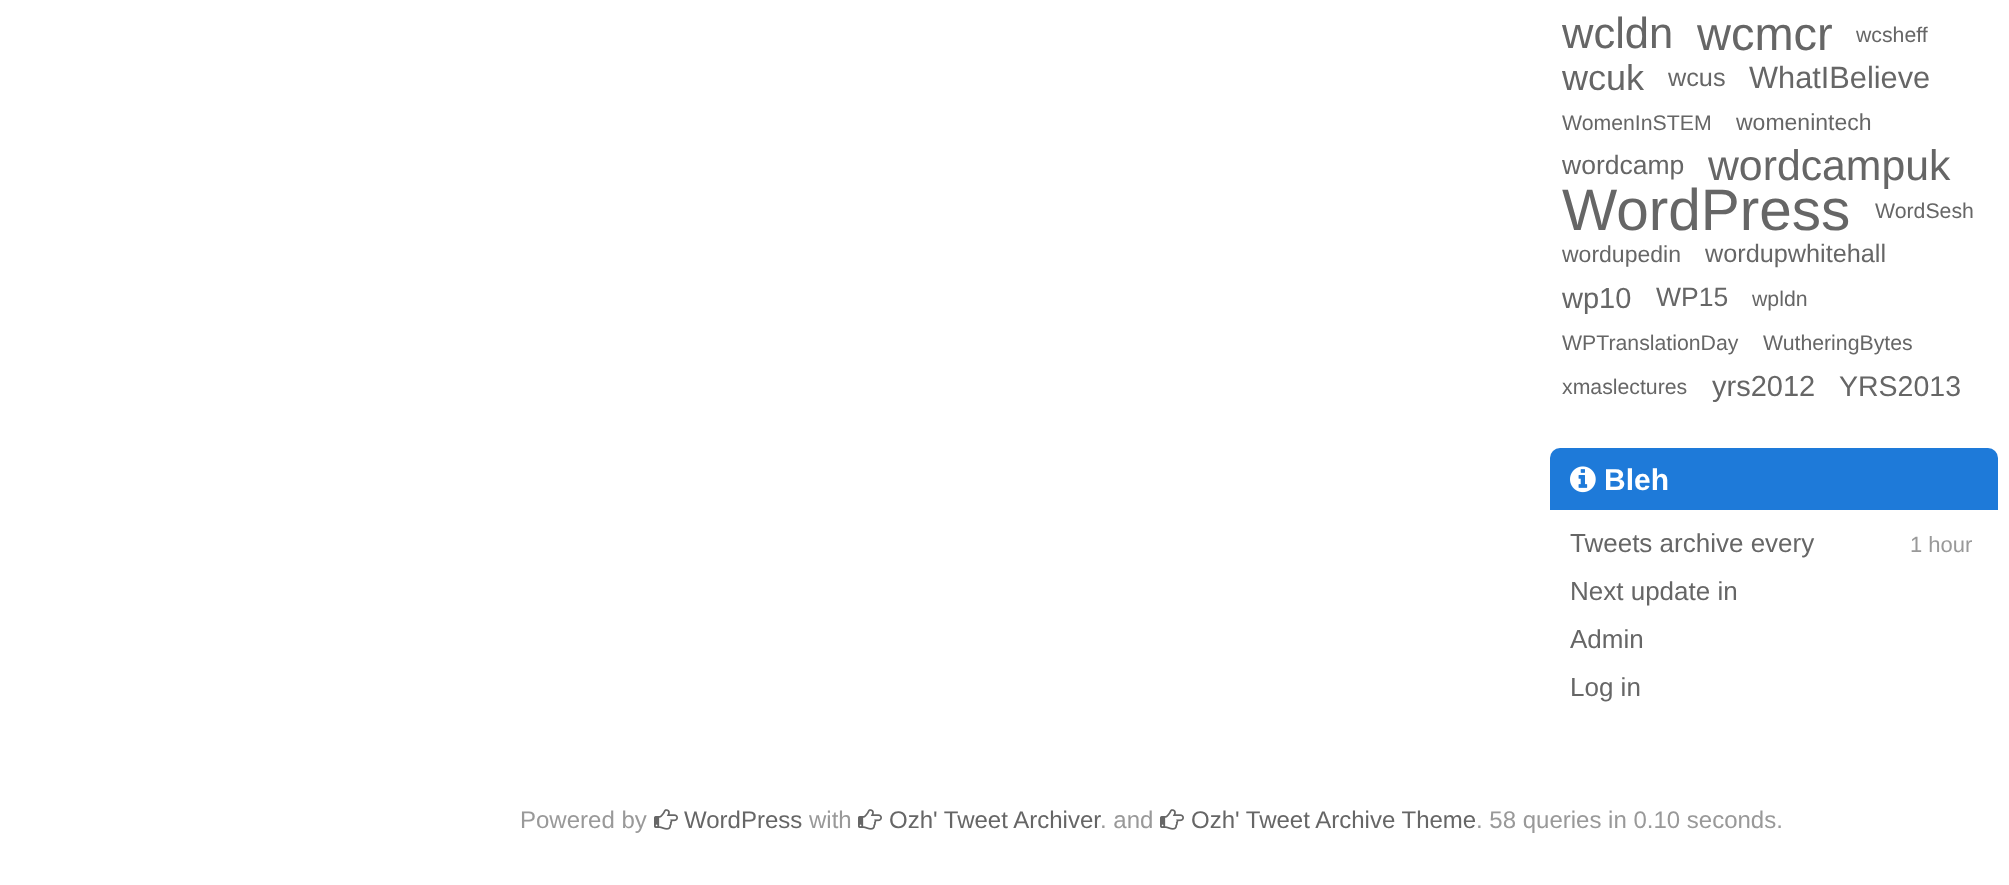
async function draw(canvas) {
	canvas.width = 2009;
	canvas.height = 885;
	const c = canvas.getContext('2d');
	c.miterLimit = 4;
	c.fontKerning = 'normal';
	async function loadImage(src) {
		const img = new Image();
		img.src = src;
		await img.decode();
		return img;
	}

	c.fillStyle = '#fff';
	c.fillRect(0, 0, 2009, 885);
	c.font = '43.5px Liberation Sans';
	c.fillStyle = '#666';
	c.fillText('wcldn', 1562, 48);
	c.font = '47px Liberation Sans';
	c.fillText('wcmcr', 1697, 50);
	c.font = '21.25px Liberation Sans';
	c.fillText('wcsheff', 1856, 42);
	c.font = '36px Liberation Sans';
	c.fillText('wcuk', 1562, 90);
	c.font = '25.25px Liberation Sans';
	c.fillText('wcus', 1668, 86);
	c.font = '30.75px Liberation Sans';
	c.fillText('WhatIBelieve', 1749, 88);
	c.font = '21.25px Liberation Sans';
	c.fillText('WomenInSTEM', 1562, 130);
	c.font = '23px Liberation Sans';
	c.fillText('womenintech', 1736, 130);
	c.font = '26.5px Liberation Sans';
	c.fillText('wordcamp', 1562, 174);
	c.font = '42.75px Liberation Sans';
	c.fillText('wordcampuk', 1708, 180);
	c.font = '58.5px Liberation Sans';
	c.fillText('WordPress', 1562, 230);
	c.font = '21.25px Liberation Sans';
	c.fillText('WordSesh', 1875, 218);
	c.font = '23px Liberation Sans';
	c.fillText('wordupedin', 1562, 262);
	c.font = '25.25px Liberation Sans';
	c.fillText('wordupwhitehall', 1705, 262);
	c.font = '29px Liberation Sans';
	c.fillText('wp10', 1562, 308);
	c.font = '26.5px Liberation Sans';
	c.fillText('WP15', 1656, 306);
	c.font = '21.25px Liberation Sans';
	for (const [text, x, y] of [
		['wpldn', 1752, 306],
		['WPTranslationDay', 1562, 350],
		['WutheringBytes', 1763, 350],
		['xmaslectures', 1562, 394],
	]) {
		c.fillText(text, x, y);
	}
	c.font = '29px Liberation Sans';
	c.fillText('yrs2012', 1712, 396);
	c.font = '28.5px Liberation Sans';
	c.fillText('YRS2013', 1839, 396);
	c.fillStyle = '#1e7ad9';
	c.beginPath();
	c.roundRect(1550, 448, 448, 62, [10, 10, 0, 0]);
	c.fill();
	c.drawImage(await loadImage('img1.png'), 1570, 466, 26, 27);
	c.font = 'bold 30px Liberation Sans';
	c.fillStyle = '#fff';
	c.fillText('Bleh', 1604, 490);
	c.font = '26px Liberation Sans';
	c.fillStyle = '#666';
	c.fillText('Tweets archive every', 1570, 552);
	c.font = '22px Liberation Sans';
	c.fillStyle = '#999';
	c.fillText('1 hour', 1910, 552);
	c.font = '26px Liberation Sans';
	c.fillStyle = '#666';
	for (const [text, x, y] of [
		['Next update in', 1570, 600],
		['Admin', 1570, 648],
		['Log in', 1570, 696],
	]) {
		c.fillText(text, x, y);
	}
	c.font = '24px Liberation Sans';
	c.fillStyle = '#999';
	c.fillText('Powered by', 520, 828);
	c.drawImage(await loadImage('img2.png'), 654, 809, 24, 21);
	c.fillStyle = '#666';
	c.fillText('WordPress', 684, 828);
	c.fillStyle = '#999';
	c.fillText('with', 809, 828);
	c.drawImage(await loadImage('img2.png'), 858, 809, 24, 21);
	c.fillStyle = '#666';
	c.fillText('Ozh\' Tweet Archiver', 889, 828);
	c.fillStyle = '#999';
	c.fillText('. and', 1100, 828);
	c.drawImage(await loadImage('img2.png'), 1160, 809, 24, 21);
	c.fillStyle = '#666';
	c.fillText('Ozh\' Tweet Archive Theme', 1191, 828);
	c.fillStyle = '#999';
	c.fillText('. 58 queries in 0.10 seconds.', 1476, 828);
}

draw(document.querySelector('canvas'));
